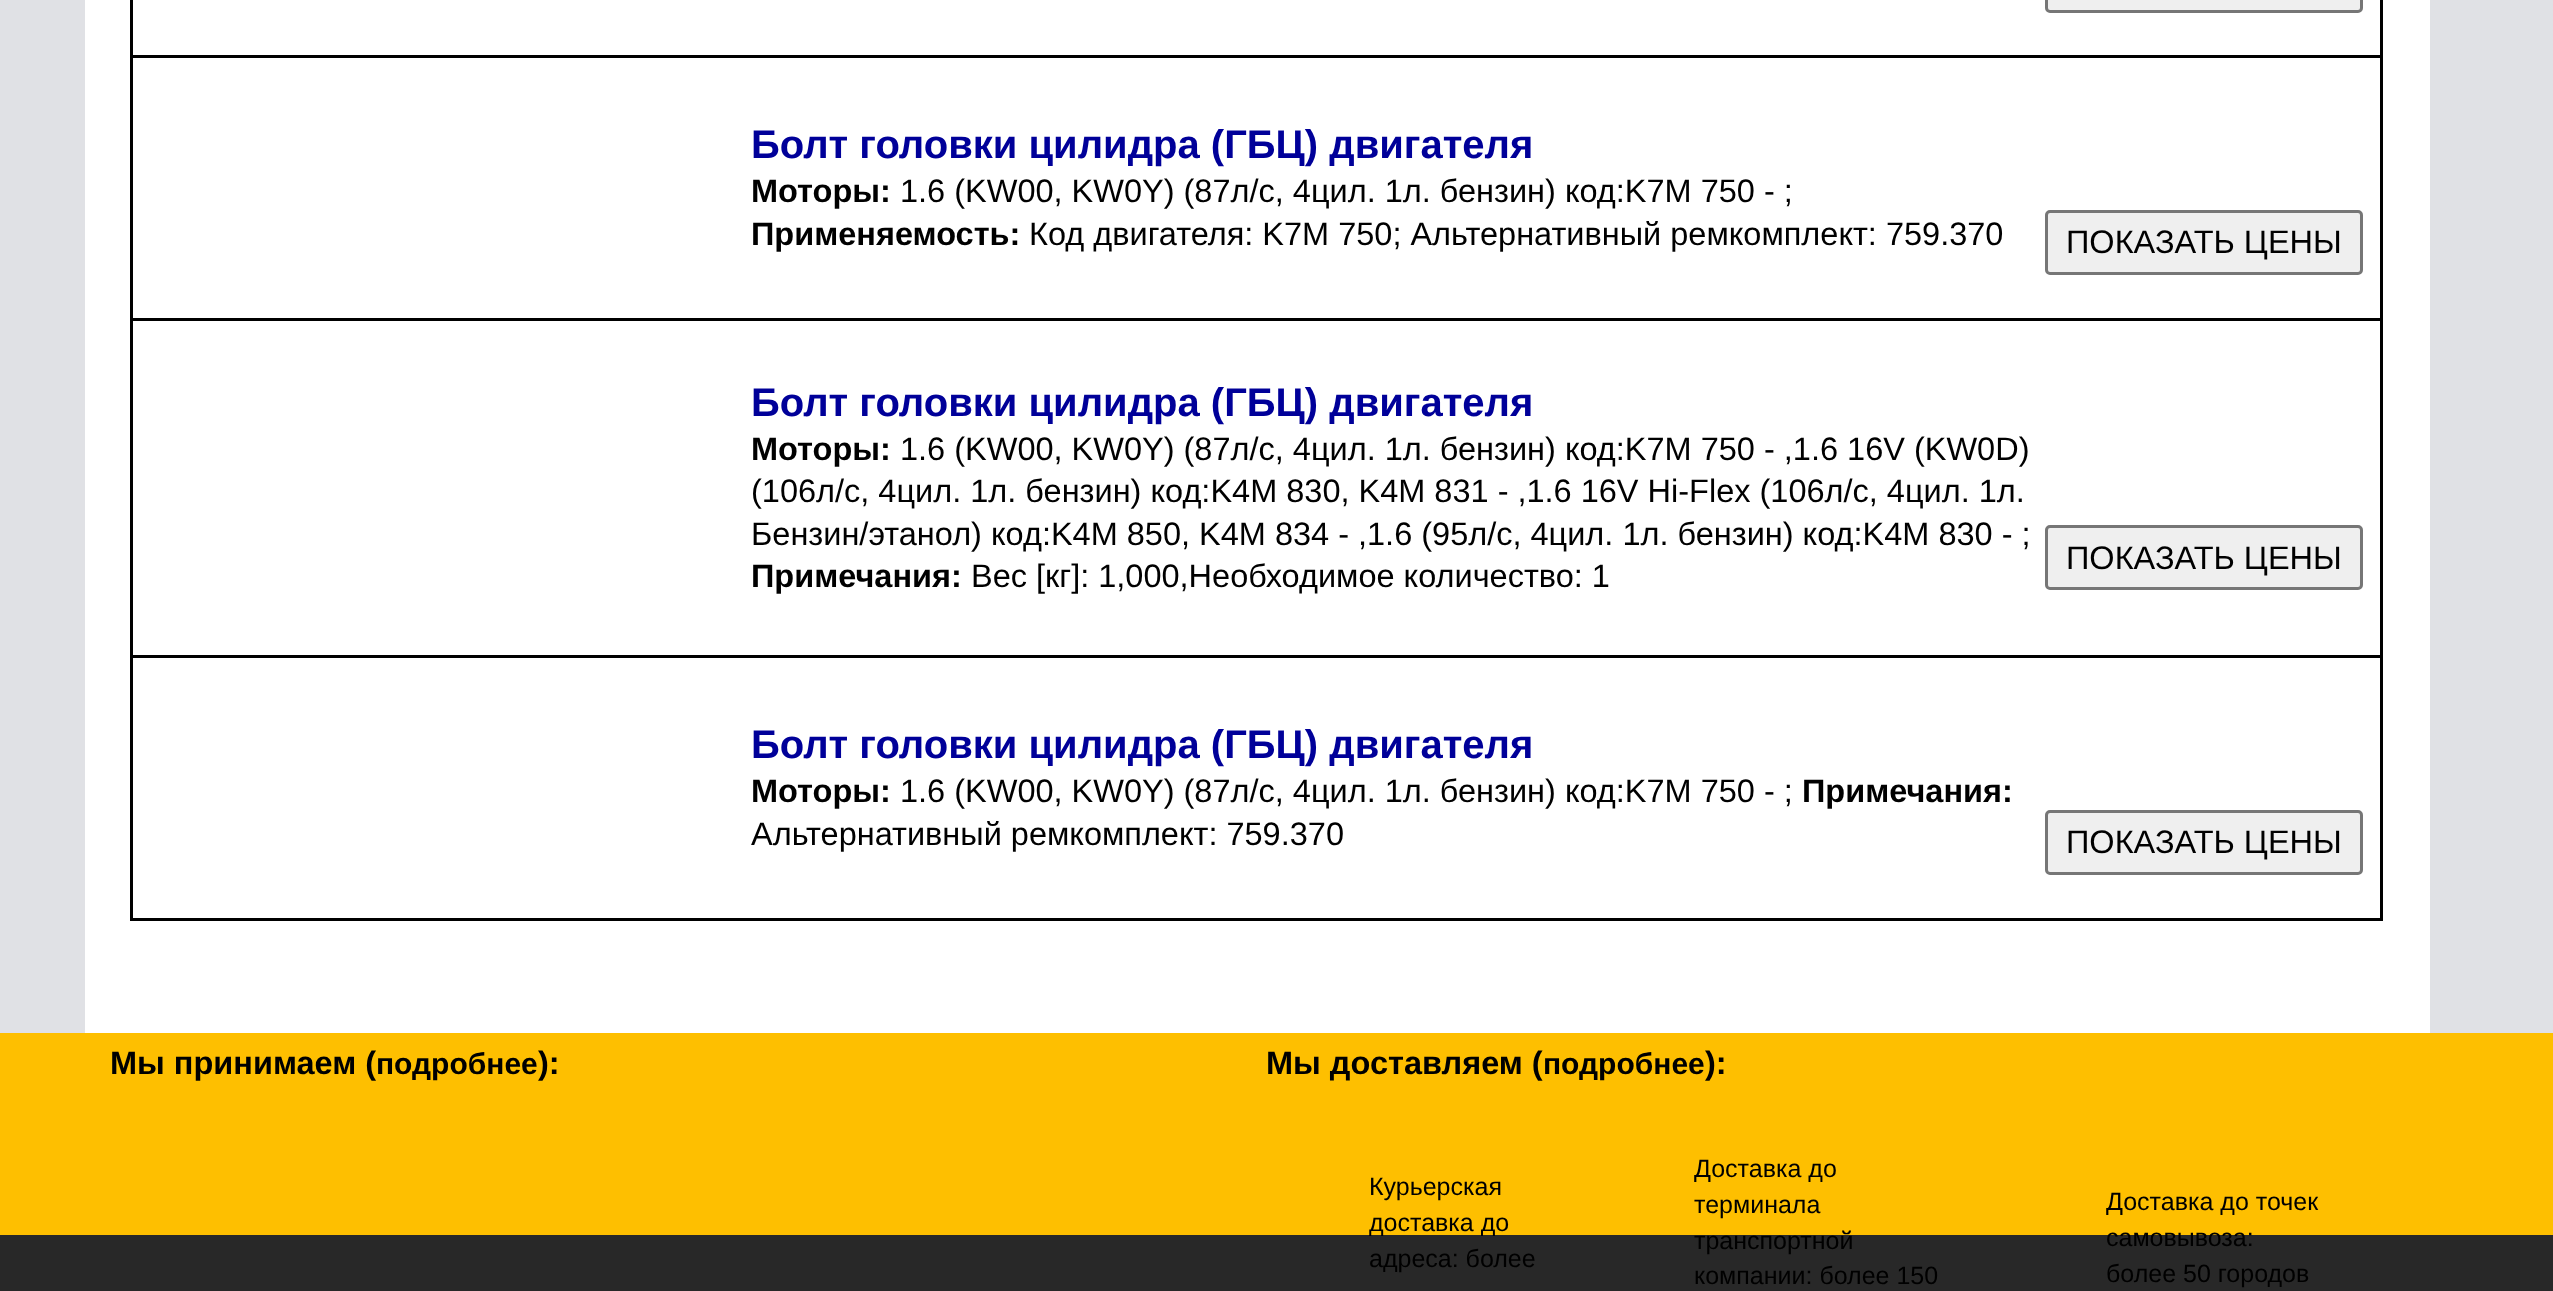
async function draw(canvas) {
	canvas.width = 2553;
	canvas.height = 1291;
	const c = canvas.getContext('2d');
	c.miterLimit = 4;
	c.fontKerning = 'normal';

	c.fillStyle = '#e0e1e5';
	c.fillRect(0, 0, 2553, 1291);
	for (const [x, y, w, h, color] of [
		[85, 0, 2345, 1033, '#fff'],
		[130, 55, 608, 3, '#000'],
		[130, 0, 3, 58, '#000'],
		[2380, 0, 3, 320, '#000'],
		[738, 55, 1645, 3, '#000'],
	]) {
		c.fillStyle = color;
		c.fillRect(x, y, w, h);
	}
	c.fillStyle = '#efefef';
	c.beginPath();
	c.roundRect(2046.5, -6.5, 315, 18, 3.5);
	c.fill();
	c.strokeStyle = '#767676';
	c.lineWidth = 3;
	c.stroke();
	c.fillStyle = '#000';
	c.fillRect(130, 318, 2253, 3);
	c.fillRect(130, 58, 3, 262);
	c.font = 'bold 40px Liberation Sans';
	c.fillStyle = '#009';
	c.fillText('Болт головки цилидра (ГБЦ) двигателя', 751, 158);
	c.font = 'bold 32.5px Liberation Sans';
	c.fillStyle = '#000';
	c.fillText('Моторы:', 751, 202);
	c.font = '32.5px Liberation Sans';
	c.fillText('1.6 (KW00, KW0Y) (87л/с, 4цил. 1л. бензин) код:K7M 750 - ;', 900, 202);
	c.font = 'bold 32.5px Liberation Sans';
	c.fillText('Применяемость:', 751, 245);
	c.font = '32.5px Liberation Sans';
	c.fillText('Код двигателя: K7M 750; Альтернативный ремкомплект: 759.370', 1029, 245);
	c.fillStyle = '#efefef';
	c.beginPath();
	c.roundRect(2046.5, 211.5, 315, 62, 3.5);
	c.fill();
	c.stroke();
	c.fillStyle = '#000';
	c.fillText('ПОКАЗАТЬ ЦЕНЫ', 2066, 253);
	for (const [x, y, w, h, color] of [
		[130, 655, 608, 3, '#000'],
		[130, 320, 3, 338, '#000'],
		[2380, 320, 3, 600, '#000'],
		[738, 655, 1645, 3, '#000'],
	]) {
		c.fillStyle = color;
		c.fillRect(x, y, w, h);
	}
	c.font = 'bold 40px Liberation Sans';
	c.fillStyle = '#009';
	c.fillText('Болт головки цилидра (ГБЦ) двигателя', 751, 416);
	c.font = 'bold 32.5px Liberation Sans';
	c.fillStyle = '#000';
	c.fillText('Моторы:', 751, 460);
	c.font = '32.5px Liberation Sans';
	for (const [text, x, y] of [
		['1.6 (KW00, KW0Y) (87л/с, 4цил. 1л. бензин) код:K7M 750 - ,1.6 16V (KW0D)', 900, 460],
		['(106л/с, 4цил. 1л. бензин) код:K4M 830, K4M 831 - ,1.6 16V Hi-Flex (106л/с, 4цил. 1л.', 751, 502],
		['Бензин/этанол) код:K4M 850, K4M 834 - ,1.6 (95л/с, 4цил. 1л. бензин) код:K4M 830 - ;', 751, 545],
	]) {
		c.fillText(text, x, y);
	}
	c.font = 'bold 32.5px Liberation Sans';
	c.fillText('Примечания:', 751, 587);
	c.font = '32.5px Liberation Sans';
	c.fillText('Вес [кг]: 1,000,Необходимое количество: 1', 971, 587);
	c.fillStyle = '#efefef';
	c.beginPath();
	c.roundRect(2046.5, 526.5, 315, 62, 3.5);
	c.fill();
	c.stroke();
	c.fillStyle = '#000';
	c.fillText('ПОКАЗАТЬ ЦЕНЫ', 2066, 569);
	c.fillRect(130, 918, 2253, 3);
	c.fillRect(130, 658, 3, 262);
	c.font = 'bold 40px Liberation Sans';
	c.fillStyle = '#009';
	c.fillText('Болт головки цилидра (ГБЦ) двигателя', 751, 758);
	c.font = 'bold 32.5px Liberation Sans';
	c.fillStyle = '#000';
	c.fillText('Моторы:', 751, 802);
	c.font = '32.5px Liberation Sans';
	c.fillText('1.6 (KW00, KW0Y) (87л/с, 4цил. 1л. бензин) код:K7M 750 - ;', 900, 802);
	c.font = 'bold 32.5px Liberation Sans';
	c.fillText('Примечания:', 1802, 802);
	c.font = '32.5px Liberation Sans';
	c.fillText('Альтернативный ремкомплект: 759.370', 751, 845);
	c.fillStyle = '#efefef';
	c.beginPath();
	c.roundRect(2046.5, 811.5, 315, 62, 3.5);
	c.fill();
	c.stroke();
	c.fillStyle = '#000';
	c.fillText('ПОКАЗАТЬ ЦЕНЫ', 2066, 853);
	c.fillStyle = '#febf00';
	c.fillRect(0, 1033, 2553, 202);
	c.font = 'bold 32.5px Liberation Sans';
	c.fillStyle = '#000';
	c.fillText('Мы принимаем (', 110, 1074);
	c.font = 'bold 30px Liberation Sans';
	c.fillText('подробнее', 376, 1074);
	c.font = 'bold 32.5px Liberation Sans';
	c.fillText('):', 538, 1074);
	c.fillText('Мы доставляем (', 1266, 1074);
	c.font = 'bold 30px Liberation Sans';
	c.fillText('подробнее', 1543, 1074);
	c.font = 'bold 32.5px Liberation Sans';
	c.fillText('):', 1705, 1074);
	c.font = '25px Liberation Sans';
	c.fillText('Курьерская', 1369, 1195);
	c.fillStyle = '#282828';
	c.fillRect(0, 1235, 2553, 56);
	c.fillStyle = '#000';
	for (const [text, x, y] of [
		['доставка до', 1369, 1231],
		['адреса: более', 1369, 1267],
		['Доставка до', 1694, 1177],
		['терминала', 1694, 1213],
		['транспортной', 1694, 1249],
		['компании: более 150', 1694, 1284],
		['Доставка до точек', 2106, 1210],
		['самовывоза:', 2106, 1246],
		['более 50 городов', 2106, 1282],
	]) {
		c.fillText(text, x, y);
	}
}

draw(document.querySelector('canvas'));
